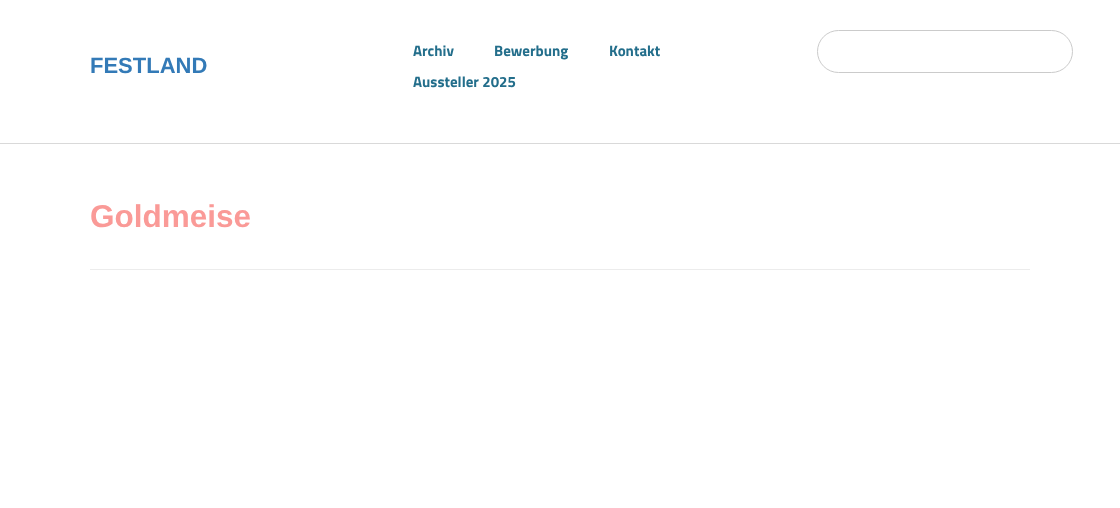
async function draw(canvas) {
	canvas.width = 1120;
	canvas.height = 508;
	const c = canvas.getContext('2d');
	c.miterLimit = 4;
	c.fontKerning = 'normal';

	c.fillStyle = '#fff';
	c.fillRect(0, 0, 1120, 508);
	c.fillStyle = '#d9d9d9';
	c.fillRect(0, 143, 1120, 1);
	c.font = 'bold 22px Liberation Sans';
	c.fillStyle = '#337ab7';
	c.fillText('FESTLAND', 90, 73);
	c.font = 'bold 15px Titillium Web';
	c.fillStyle = '#236e8b';
	for (const [text, x, y] of [
		['Archiv', 413, 56],
		['Bewerbung', 494, 56],
		['Kontakt', 609, 56],
		['Aussteller 2025', 413, 87],
	]) {
		c.fillText(text, x, y);
	}
	c.beginPath();
	c.roundRect(817.5, 30.5, 255, 42, 21);
	c.strokeStyle = '#cbcbcb';
	c.stroke();
	c.fillStyle = '#ececec';
	c.fillRect(90, 269, 940, 1);
	c.font = 'bold 31.5px Liberation Sans';
	c.fillStyle = '#fa9a97';
	c.fillText('Goldmeise', 90, 227);
}

draw(document.querySelector('canvas'));
